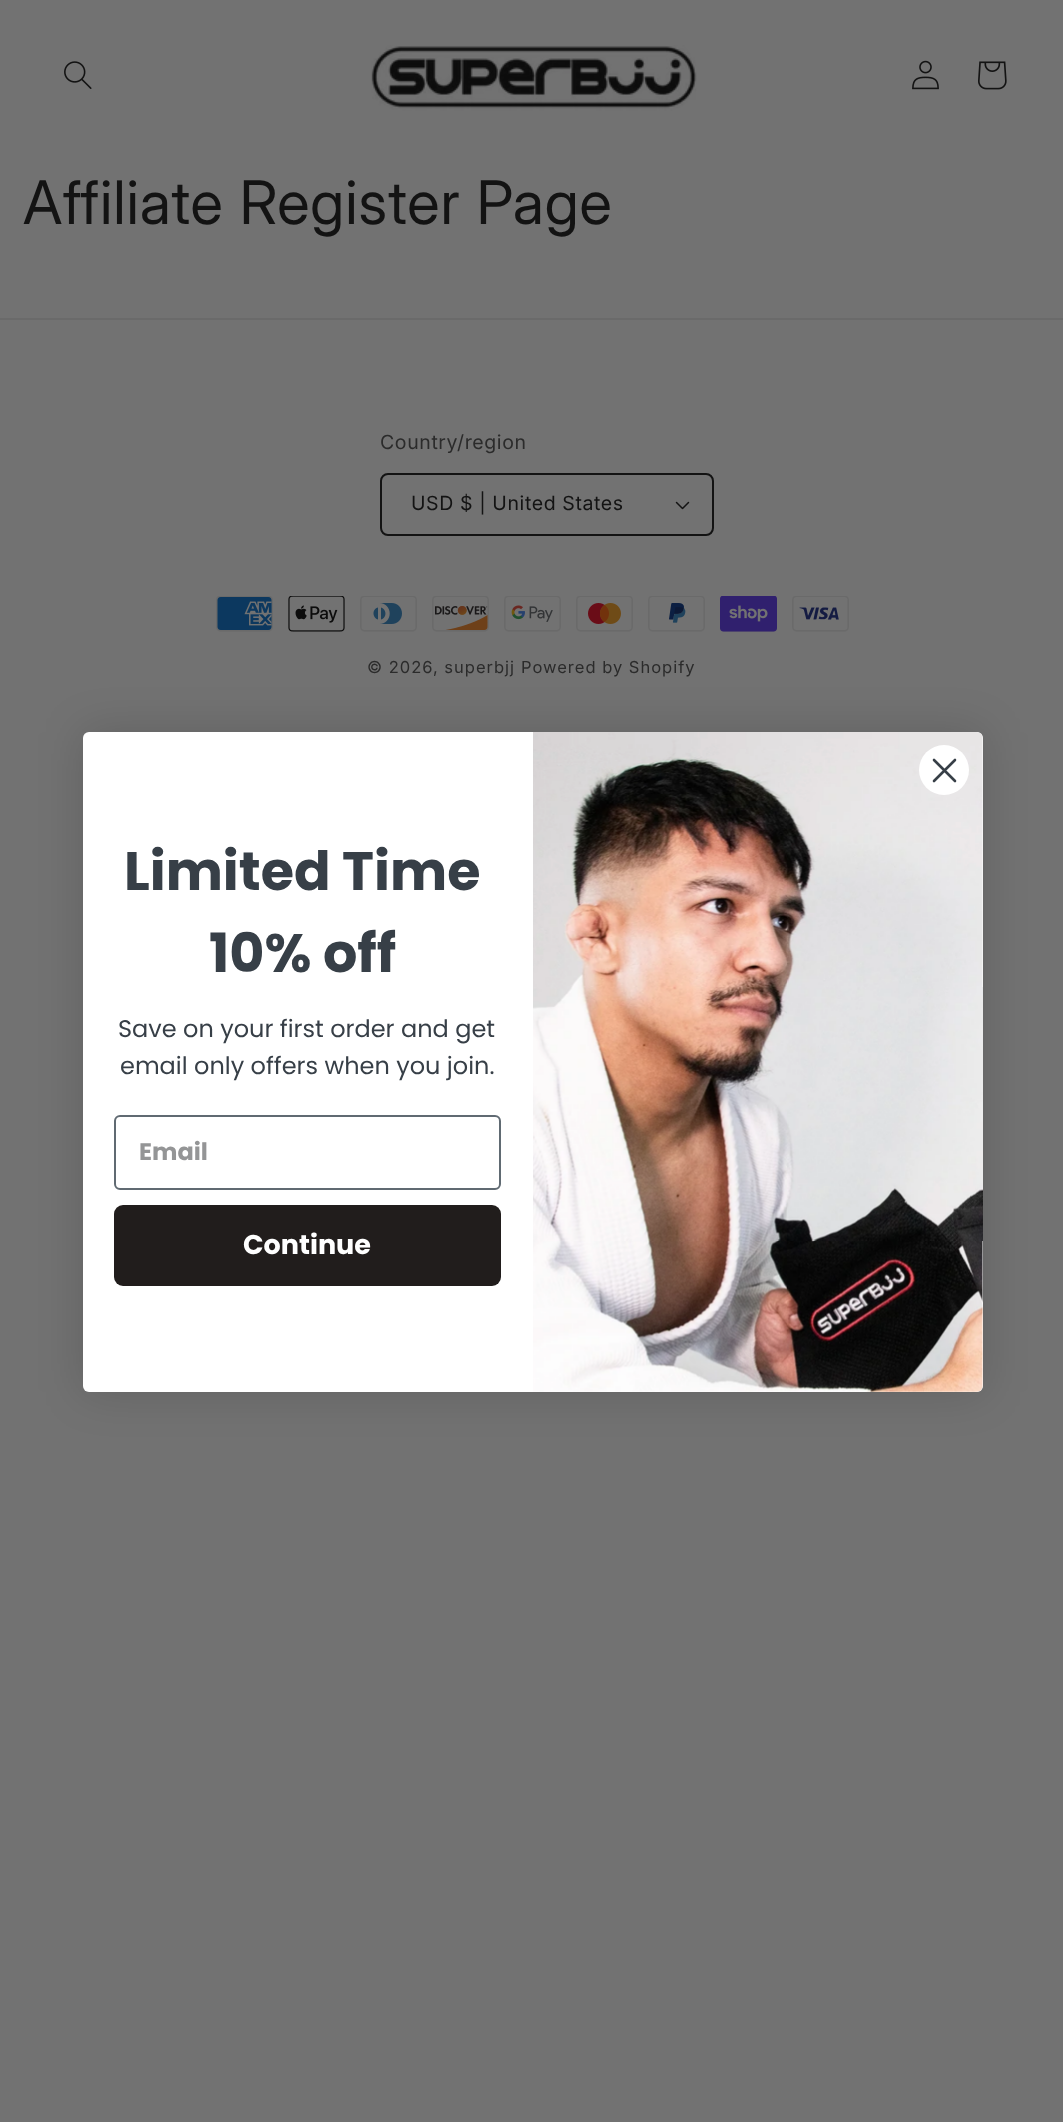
async function draw(canvas) {
	canvas.width = 1063;
	canvas.height = 2122;
	const c = canvas.getContext('2d');
	c.miterLimit = 4;
	c.fontKerning = 'normal';
	async function loadImage(src) {
		const img = new Image();
		img.src = src;
		await img.decode();
		return img;
	}

	c.fillStyle = '#727272';
	c.fillRect(0, 0, 1063, 2122);
	c.drawImage(await loadImage('img1.png'), 64, 61, 28, 28);
	c.drawImage(await loadImage('img2.png'), 371, 45, 326, 66);
	c.drawImage(await loadImage('img3.png'), 912, 60, 27, 30);
	c.drawImage(await loadImage('img4.png'), 978, 61, 29, 29);
	c.letterSpacing = '0.9px';
	c.font = '60px Inter';
	c.fillStyle = '#131313';
	c.fillText('Affiliate Register Page', 23, 224);
	c.fillStyle = '#6a6a6a';
	c.fillRect(0, 318, 1063, 2);
	c.letterSpacing = '0.6px';
	c.font = '19.5px "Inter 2"';
	c.fillStyle = '#2b2b2b';
	c.fillText('Country/region', 380, 449);
	c.drawImage(await loadImage('img5.png'), 675, 501, 15, 9);
	c.beginPath();
	c.roundRect(381, 474, 332, 61, 7);
	c.strokeStyle = '#131313';
	c.lineWidth = 2;
	c.stroke();
	c.fillStyle = '#131313';
	c.fillText('USD $ | United States', 411, 510);
	c.drawImage(await loadImage('img6.png'), 216, 596, 57, 36);
	c.drawImage(await loadImage('img7.png'), 288, 596, 57, 36);
	c.drawImage(await loadImage('img8.png'), 360, 596, 57, 36);
	c.drawImage(await loadImage('img9.png'), 432, 596, 57, 36);
	c.drawImage(await loadImage('img10.png'), 504, 596, 57, 36);
	c.drawImage(await loadImage('img11.png'), 576, 596, 57, 36);
	c.drawImage(await loadImage('img12.png'), 648, 596, 57, 36);
	c.drawImage(await loadImage('img13.png'), 720, 596, 57, 36);
	c.drawImage(await loadImage('img14.png'), 792, 596, 57, 36);
	c.letterSpacing = '1px';
	c.font = '16.5px "Inter 2"';
	c.fillStyle = '#2b2b2b';
	c.fillText('© 2026, superbjj', 367, 673);
	c.fillText('Powered by Shopify', 521, 673);
	c.fillStyle = '#00000026';
	c.filter = 'blur(22.5px)';
	c.beginPath();
	c.roundRect(83, 732, 900, 660, 6);
	c.fill();
	c.filter = 'none';
	c.fillStyle = '#fff';
	c.beginPath();
	c.roundRect(83, 732, 900, 660, 6);
	c.fill();
	c.drawImage(await loadImage('img15.png'), 533, 732, 450, 660);
	c.beginPath();
	c.arc(944, 770, 25, 0, 2 * Math.PI);
	c.fill();
	c.beginPath();
	c.moveTo(934, 760);
	c.lineTo(955, 781);
	c.moveTo(934, 781);
	c.lineTo(955, 760);
	c.closePath();
	c.strokeStyle = '#373f47';
	c.lineWidth = 2.6;
	c.lineCap = 'round';
	c.lineJoin = 'round';
	c.stroke();
	c.letterSpacing = '0px';
	c.font = 'bold 54px Poppins';
	c.fillStyle = '#373f47';
	c.fillText('Limited Time', 124, 890);
	c.fillText('10% off', 209, 972);
	c.font = '24px Poppins';
	c.fillText('Save on your first order and get', 118, 1037);
	c.fillText('email only offers when you join.', 120, 1074);
	c.beginPath();
	c.roundRect(115, 1116, 385, 73, 5);
	c.strokeStyle = '#606a72';
	c.lineWidth = 2;
	c.lineJoin = 'miter';
	c.stroke();
	c.font = 'bold 24px Poppins';
	c.fillStyle = '#949596';
	c.fillText('Email', 139, 1160);
	c.fillStyle = '#211d1c';
	c.beginPath();
	c.roundRect(114, 1205, 387, 81, 9);
	c.fill();
	c.font = 'bold 27px Poppins';
	c.fillStyle = '#fff';
	c.fillText('Continue', 243, 1254);
}

draw(document.querySelector('canvas'));
